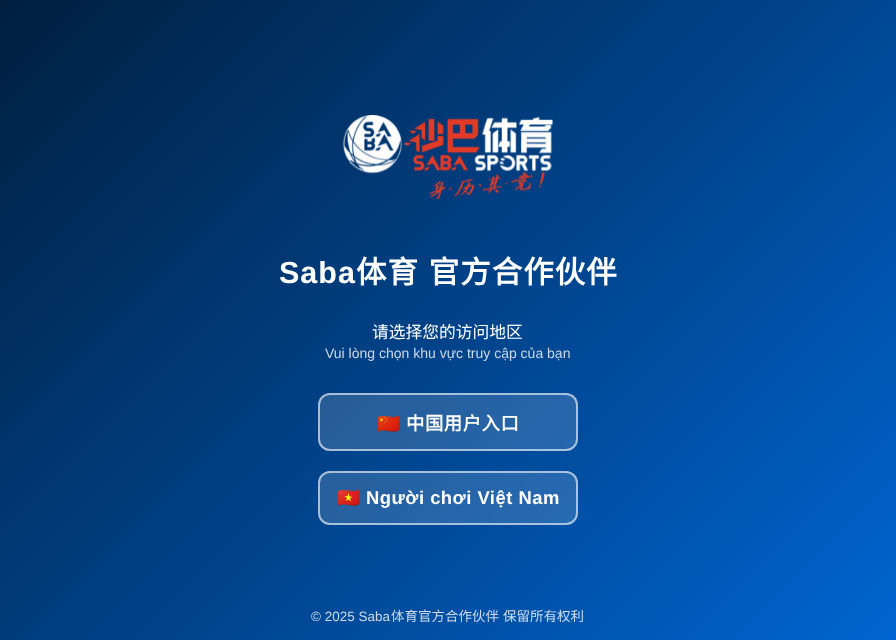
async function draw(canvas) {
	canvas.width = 896;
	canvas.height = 640;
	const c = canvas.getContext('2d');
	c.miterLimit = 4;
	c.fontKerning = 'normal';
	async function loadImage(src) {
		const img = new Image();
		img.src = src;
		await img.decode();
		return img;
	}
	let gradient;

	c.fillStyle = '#fff';
	c.fillRect(0, 0, 896, 640);
	gradient = c.createLinearGradient(256, -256, 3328, 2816);
	gradient.addColorStop(0, '#001f3f');
	gradient.addColorStop(0.33, '#007bff');
	gradient.addColorStop(0.67, '#00c6ff');
	gradient.addColorStop(1, '#00ffa3');
	c.fillStyle = gradient;
	c.fillRect(0, 0, 896, 640);
	c.drawImage(await loadImage('img1.png'), 343, 115, 210, 84);
	c.letterSpacing = '1px';
	c.font = 'bold 30.5px Liberation Sans';
	c.fillStyle = '#fff';
	c.fillText('Saba', 279, 283);
	c.wordSpacing = '2px';
	c.font = 'bold 30.5px Noto Sans CJK SC';
	c.fillText('体育 官方合作伙伴', 356, 283);
	c.letterSpacing = '0px';
	c.wordSpacing = '0px';
	c.font = '16.75px Noto Sans CJK SC';
	c.fillText('请选择您的访问地区', 372, 338);
	c.font = '14px Liberation Sans';
	c.fillStyle = '#ccd9e8';
	c.fillText('Vui lòng chọn khu vực truy cập của bạn', 325, 358);
	c.fillStyle = '#ffffff26';
	c.beginPath();
	c.roundRect(318, 393, 260, 58, 12);
	c.fill();
	c.beginPath();
	c.roundRect(319, 394, 258, 56, 11);
	c.strokeStyle = '#ffffff99';
	c.lineWidth = 2;
	c.stroke();
	c.letterSpacing = '0.5px';
	c.font = 'bold 18.4px Noto Color Emoji';
	c.fillStyle = '#fff';
	c.fillText('🇨🇳', 377, 430);
	c.font = 'bold 18.4px Noto Sans CJK SC';
	c.fillText('中国用户入口', 406, 430);
	c.fillStyle = '#ffffff26';
	c.beginPath();
	c.roundRect(318, 471, 260, 54, 12);
	c.fill();
	c.beginPath();
	c.roundRect(319, 472, 258, 52, 11);
	c.stroke();
	c.font = 'bold 18.4px Noto Color Emoji';
	c.fillStyle = '#fff';
	c.fillText('🇻🇳', 337, 504);
	c.font = 'bold 18.4px Liberation Sans';
	c.fillText('Người chơi Việt Nam', 366, 504);
	c.letterSpacing = '0px';
	c.font = '13.5px Liberation Sans';
	c.fillStyle = '#ccd9e8';
	c.fillText('© 2025 Saba', 311, 621);
	c.font = '13.5px Noto Sans CJK SC';
	c.fillText('体育官方合作伙伴', 391, 621);
	c.fillStyle = '#ccddef';
	c.fillText('保留所有权利', 503, 621);
}

draw(document.querySelector('canvas'));
